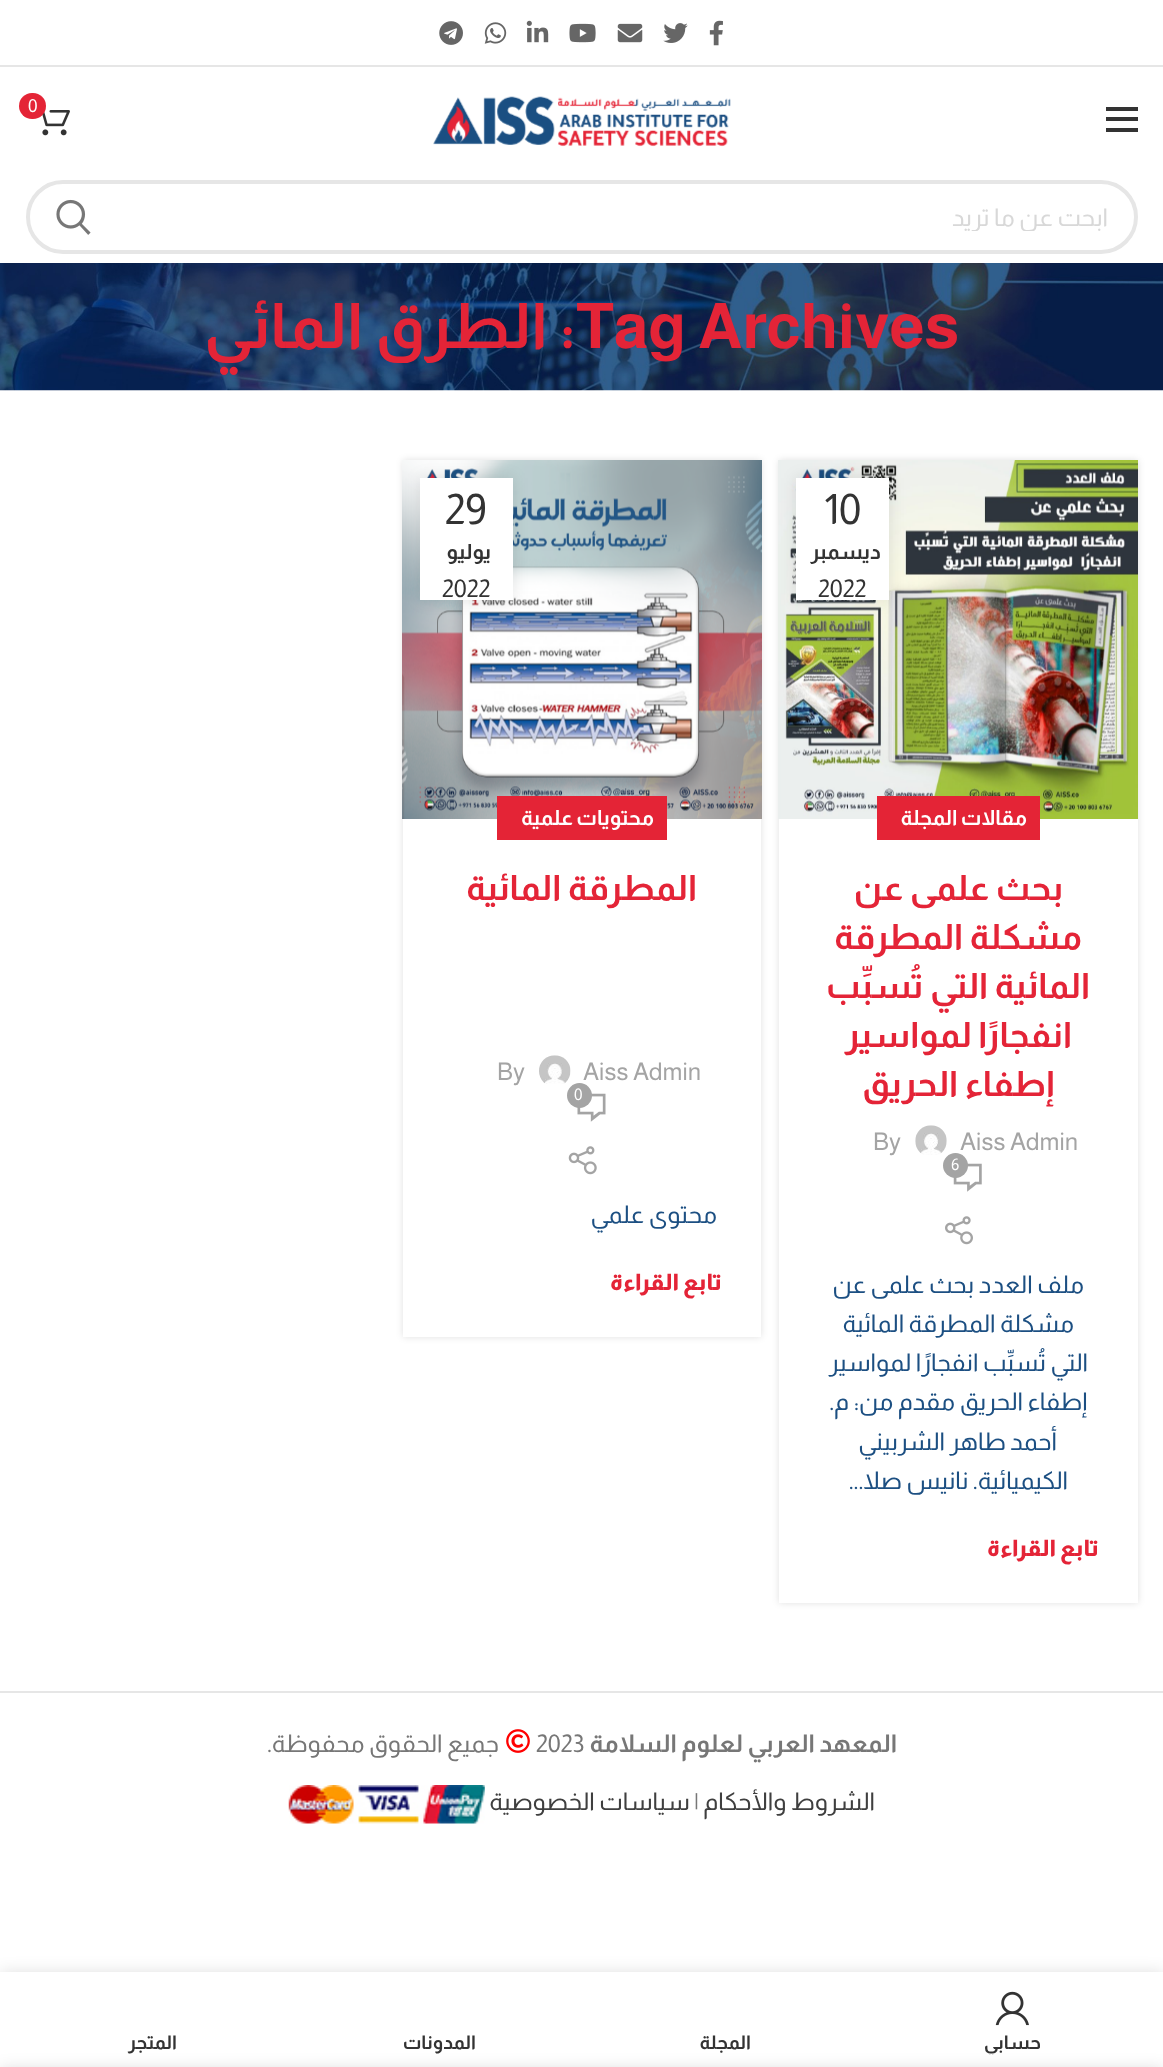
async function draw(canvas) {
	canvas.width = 1163;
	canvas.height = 2067;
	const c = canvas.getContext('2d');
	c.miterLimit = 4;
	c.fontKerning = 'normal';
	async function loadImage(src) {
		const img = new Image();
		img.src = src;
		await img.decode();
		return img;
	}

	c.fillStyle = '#fff';
	c.fillRect(0, 0, 1163, 2067);
	c.fillStyle = '#e6e6e6';
	c.fillRect(0, 65, 1163, 2);
	c.drawImage(await loadImage('img1.png'), 709, 20, 14, 26);
	c.drawImage(await loadImage('img2.png'), 663, 23, 25, 20);
	c.drawImage(await loadImage('img3.png'), 617, 23, 26, 20);
	c.drawImage(await loadImage('img4.png'), 569, 23, 27, 20);
	c.drawImage(await loadImage('img5.png'), 526, 20, 23, 23);
	c.drawImage(await loadImage('img6.png'), 484, 22, 23, 22);
	c.drawImage(await loadImage('img7.png'), 439, 21, 24, 24);
	for (const [x, y, w, h, color] of [
		[1106, 117, 32, 4, '#333'],
		[1106, 107, 32, 4, '#333'],
		[1106, 128, 32, 4, '#333'],
	]) {
		c.fillStyle = color;
		c.fillRect(x, y, w, h);
	}
	c.drawImage(await loadImage('img8.png'), 433, 96, 298, 51);
	c.drawImage(await loadImage('img9.png'), 42, 110, 28, 26);
	c.fillStyle = '#e42436';
	c.beginPath();
	c.roundRect(19, 93, 27, 26, 13);
	c.fill();
	c.font = '18px Almarai';
	c.fillStyle = '#fff';
	c.fillText('0', 28, 112);
	c.beginPath();
	c.roundRect(28, 182, 1108, 70, 35);
	c.strokeStyle = '#e6e6e6';
	c.lineWidth = 4;
	c.stroke();
	c.save();
	c.beginPath();
	c.rect(117, 203, 991, 28);
	c.clip();
	c.direction = 'rtl';
	c.font = '24.5px Almarai';
	c.fillStyle = '#d8d8d8';
	c.fillText('ابحت عن ما تريد', 1108, 226);
	c.restore();
	c.drawImage(await loadImage('img10.png'), 56, 199, 35, 36);
	c.drawImage(await loadImage('img11.png'), 0, 263, 1163, 128);
	c.font = 'bold 63px Almarai';
	c.fillStyle = '#e42437';
	c.fillText('Tag Archives', 576, 348);
	c.direction = 'rtl';
	c.fillText(': الطرق المائي', 576, 348);
	c.fillStyle = '#0000001f';
	c.filter = 'blur(3.5px)';
	c.beginPath();
	c.rect(779, 460, 359, 1143);
	c.fill();
	c.filter = 'none';
	c.drawImage(await loadImage('img12.png'), 778, 460, 360, 359);
	c.fillStyle = '#0000001a';
	c.filter = 'blur(8px)';
	c.beginPath();
	c.rect(796, 478, 93, 122);
	c.fill();
	c.filter = 'none';
	c.fillStyle = '#fff';
	c.fillRect(796, 478, 93, 122);
	c.direction = 'ltr';
	c.font = '42px Almarai';
	c.fillStyle = '#333';
	c.fillText('10', 824, 524);
	c.letterSpacing = '0.5px';
	c.direction = 'rtl';
	c.font = 'bold 21px Almarai';
	c.fillText('ديسمبر', 881, 559);
	c.letterSpacing = '0px';
	c.direction = 'ltr';
	c.font = '24.5px Almarai';
	c.fillText('2022', 818, 597);
	c.fillStyle = '#fff';
	c.fillRect(779, 819, 359, 784);
	c.fillStyle = '#e42436';
	c.fillRect(877, 796, 163, 44);
	c.letterSpacing = '0.5px';
	c.wordSpacing = '-1px';
	c.direction = 'rtl';
	c.font = 'bold 21px Almarai';
	c.fillStyle = '#fff';
	c.fillText('مقالات المجلة', 1027, 825);
	c.letterSpacing = '0px';
	c.wordSpacing = '0px';
	c.font = 'bold 35px Almarai';
	c.fillStyle = '#e42437';
	for (const [text, x, y] of [
		['بحث علمى عن', 1063, 900],
		['مشكلة المطرقة', 1082, 949],
		['المائية التي تُسبِّب', 1090, 998],
		['انفجارًا لمواسير', 1072, 1047],
		['إطفاء الحريق', 1054, 1096],
	]) {
		c.fillText(text, x, y);
	}
	c.direction = 'ltr';
	c.font = '24.5px Almarai';
	c.fillStyle = '#a4a4a4';
	c.fillText('Aiss Admin', 960, 1150);
	c.drawImage(await loadImage('img13.png'), 915, 1125, 32, 30);
	c.fillText('By', 873, 1150);
	c.drawImage(await loadImage('img14.png'), 953, 1163, 29, 29);
	c.beginPath();
	c.arc(955.5, 1165.5, 12.5, 0, 2 * Math.PI);
	c.fill();
	c.font = '16px Almarai';
	c.fillStyle = '#fff';
	c.fillText('6', 951, 1170);
	c.drawImage(await loadImage('img15.png'), 945, 1216, 28, 29);
	c.direction = 'rtl';
	c.font = '24.5px Almarai';
	c.fillStyle = '#1c4f82';
	for (const [text, x, y] of [
		['ملف العدد', 1084, 1293],
		['بحث علمى عن', 974, 1293],
		['مشكلة المطرقة المائية', 1074, 1332],
		['التي تُسبِّب انفجارًا لمواسير', 1088, 1371],
		['إطفاء الحريق', 1087, 1410],
		['مقدم من:', 955, 1410],
		['م.', 849, 1410],
		['أحمد طاهر الشربيني', 1057, 1450],
		['الكيميائية. نانيس صلا...', 1068, 1489],
	]) {
		c.fillText(text, x, y);
	}
	c.letterSpacing = '0.5px';
	c.wordSpacing = '-1px';
	c.font = '800 22.75px Almarai';
	c.fillStyle = '#e42437';
	c.fillText('تابع القراءة', 1099, 1556);
	c.save();
	c.beginPath();
	c.moveTo(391, 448);
	c.lineTo(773, 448);
	c.lineTo(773, 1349);
	c.lineTo(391, 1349);
	c.closePath();
	c.moveTo(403, 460);
	c.lineTo(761, 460);
	c.lineTo(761, 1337);
	c.lineTo(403, 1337);
	c.closePath();
	c.clip('evenodd');
	c.fillStyle = '#0000001f';
	c.filter = 'blur(3.5px)';
	c.beginPath();
	c.rect(403, 460, 358, 877);
	c.fill();
	c.filter = 'none';
	c.restore();
	c.drawImage(await loadImage('img16.png'), 402, 460, 360, 359);
	c.fillStyle = '#0000001a';
	c.filter = 'blur(8px)';
	c.beginPath();
	c.rect(420, 478, 93, 122);
	c.fill();
	c.filter = 'none';
	c.fillStyle = '#fff';
	c.fillRect(420, 478, 93, 122);
	c.letterSpacing = '0px';
	c.wordSpacing = '0px';
	c.direction = 'ltr';
	c.font = '42px Almarai';
	c.fillStyle = '#333';
	c.fillText('29', 445, 524);
	c.letterSpacing = '0.5px';
	c.direction = 'rtl';
	c.font = 'bold 21px Almarai';
	c.fillText('يوليو', 491, 559);
	c.letterSpacing = '0px';
	c.direction = 'ltr';
	c.font = '24.5px Almarai';
	c.fillText('2022', 442, 597);
	c.fillStyle = '#e42436';
	c.fillRect(497, 796, 170, 44);
	c.letterSpacing = '0.5px';
	c.wordSpacing = '-1px';
	c.direction = 'rtl';
	c.font = 'bold 21px Almarai';
	c.fillStyle = '#fff';
	c.fillText('محتويات علمية', 654, 825);
	c.letterSpacing = '0px';
	c.wordSpacing = '0px';
	c.font = 'bold 35px Almarai';
	c.fillStyle = '#e42437';
	c.fillText('المطرقة المائية', 697, 900);
	c.direction = 'ltr';
	c.font = '24.5px Almarai';
	c.fillStyle = '#a4a4a4';
	c.fillText('Aiss Admin', 583, 1080);
	c.drawImage(await loadImage('img17.png'), 539, 1055, 32, 29);
	c.fillText('By', 497, 1080);
	c.drawImage(await loadImage('img18.png'), 577, 1093, 29, 29);
	c.beginPath();
	c.arc(579.5, 1095.5, 12.5, 0, 2 * Math.PI);
	c.fill();
	c.font = '16px Almarai';
	c.fillStyle = '#fff';
	c.fillText('0', 574, 1100);
	c.drawImage(await loadImage('img19.png'), 568, 1146, 29, 29);
	c.direction = 'rtl';
	c.font = '24.5px Almarai';
	c.fillStyle = '#1c4f82';
	c.fillText('محتوى علمي', 717, 1223);
	c.letterSpacing = '0.5px';
	c.wordSpacing = '-1px';
	c.font = '800 22.75px Almarai';
	c.fillStyle = '#e42437';
	c.fillText('تابع القراءة', 722, 1290);
	c.fillStyle = '#e6e6e6';
	c.fillRect(0, 1691, 1163, 2);
	c.letterSpacing = '0px';
	c.wordSpacing = '0px';
	c.font = 'bold 24.5px Almarai';
	c.fillStyle = '#777';
	c.fillText('المعهد العربي لعلوم السلامة', 897, 1752);
	c.direction = 'ltr';
	c.font = '24.5px Almarai';
	c.fillText('2023', 536, 1752);
	c.drawImage(await loadImage('img20.png'), 506, 1729, 24, 24);
	c.direction = 'rtl';
	c.fillText('جميع الحقوق محفوظة.', 499, 1752);
	c.fillStyle = '#3f3f3f';
	c.fillText('الشروط والأحكام', 875, 1810);
	c.direction = 'ltr';
	c.fillStyle = '#777';
	c.fillText('|', 694, 1810);
	c.direction = 'rtl';
	c.fillStyle = '#3f3f3f';
	c.fillText('سياسات الخصوصية', 690, 1810);
	c.drawImage(await loadImage('img21.png'), 288, 1785, 197, 39);
	c.fillStyle = '#0000001f';
	c.filter = 'blur(8px)';
	c.beginPath();
	c.rect(0, 1972, 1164, 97);
	c.fill();
	c.filter = 'none';
	c.fillStyle = '#fff';
	c.fillRect(0, 1972, 1163, 95);
	c.drawImage(await loadImage('img22.png'), 995, 1991, 34, 35);
	c.save();
	c.beginPath();
	c.rect(886, 2032, 252, 23);
	c.clip();
	c.font = 'bold 19px Almarai';
	c.fillStyle = '#333';
	c.fillText('حسابي', 1041, 2049);
	c.restore();
	c.font = 'bold 19px Almarai';
	c.fillStyle = '#333';
	for (const [text, x, y] of [
		['المجلة', 751, 2049],
		['المدونات', 476, 2049],
		['المتجر', 177, 2049],
	]) {
		c.fillText(text, x, y);
	}
	c.fillStyle = '#00000024';
	c.filter = 'blur(8px)';
	c.beginPath();
	c.rect(0, 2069, 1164, 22);
	c.fill();
	c.filter = 'none';
}

draw(document.querySelector('canvas'));
